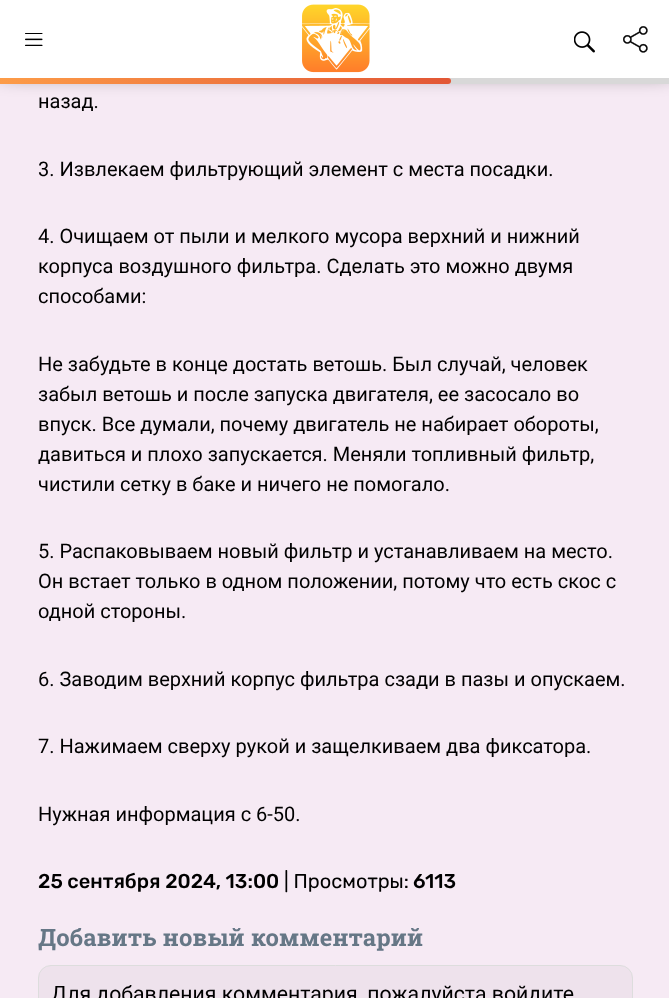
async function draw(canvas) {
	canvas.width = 669;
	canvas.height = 998;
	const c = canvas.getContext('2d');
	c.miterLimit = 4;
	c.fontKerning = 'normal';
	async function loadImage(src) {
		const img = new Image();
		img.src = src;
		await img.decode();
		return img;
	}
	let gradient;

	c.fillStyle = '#f6eaf4';
	c.fillRect(0, 0, 669, 998);
	c.fillStyle = '#000';
	c.filter = 'blur(12.5px)';
	c.beginPath();
	c.rect(1, -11, 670, 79);
	c.fill();
	c.filter = 'none';
	c.fillStyle = '#fff';
	c.fillRect(0, 0, 669, 78);
	c.drawImage(await loadImage('img1.png'), 25, 33, 18, 13);
	c.drawImage(await loadImage('img2.png'), 302, 4, 68, 69);
	c.drawImage(await loadImage('img3.png'), 574, 31, 21, 22);
	c.drawImage(await loadImage('img4.png'), 623, 26, 25, 27);
	c.fillStyle = '#d8d8d8';
	c.fillRect(448, 78, 221, 6);
	gradient = c.createLinearGradient(406, 173, 45, -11);
	gradient.addColorStop(0, '#e25635');
	gradient.addColorStop(1, '#fd9c48');
	c.fillStyle = gradient;
	c.beginPath();
	c.roundRect(0, 78, 451, 6, [0, 3, 3, 0]);
	c.fill();
	c.font = '20px Roboto';
	c.fillStyle = '#000';
	for (const [text, x, y] of [
		['назад.', 38, 108],
		['3. Извлекаем фильтрующий элемент с места посадки.', 38, 176],
		['4. Очищаем от пыли и мелкого мусора верхний и нижний', 38, 243],
		['корпуса воздушного фильтра. Сделать это можно двумя', 38, 273],
		['способами:', 38, 303],
		['Не забудьте в конце достать ветошь. Был случай, человек', 38, 371],
		['забыл ветошь и после запуска двигателя, ее засосало во', 38, 401],
		['впуск. Все думали, почему двигатель не набирает обороты,', 38, 431],
		['давиться и плохо запускается. Меняли топливный фильтр,', 38, 461],
		['чистили сетку в баке и ничего не помогало.', 38, 491],
		['5. Распаковываем новый фильтр и устанавливаем на место.', 38, 558],
		['Он встает только в одном положении, потому что есть скос с', 38, 588],
		['одной стороны.', 38, 618],
		['6. Заводим верхний корпус фильтра сзади в пазы и опускаем.', 38, 686],
		['7. Нажимаем сверху рукой и защелкиваем два фиксатора.', 38, 753],
		['Нужная информация с 6-50.', 38, 821],
	]) {
		c.fillText(text, x, y);
	}
	c.font = '300 20px Rubik';
	c.fillText('25 сентября 2024, 13:00', 38, 888);
	c.font = '300 20px "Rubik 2"';
	c.fillText('| Просмотры:', 284, 888);
	c.font = '300 20px Rubik';
	c.fillText('6113', 413, 888);
	c.font = 'bold 23.75px Roboto Slab';
	c.fillStyle = '#667786';
	c.fillText('Добавить новый комментарий', 38, 946);
	c.fillStyle = '#eee2ec';
	c.beginPath();
	c.roundRect(38.5, 965.5, 594, 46, 12.5);
	c.fill();
	c.strokeStyle = '#ddd';
	c.stroke();
	c.font = '21.25px Roboto';
	c.fillStyle = '#000';
	c.fillText('Для добавления комментария, пожалуйста войдите', 51, 1001);
}

draw(document.querySelector('canvas'));
